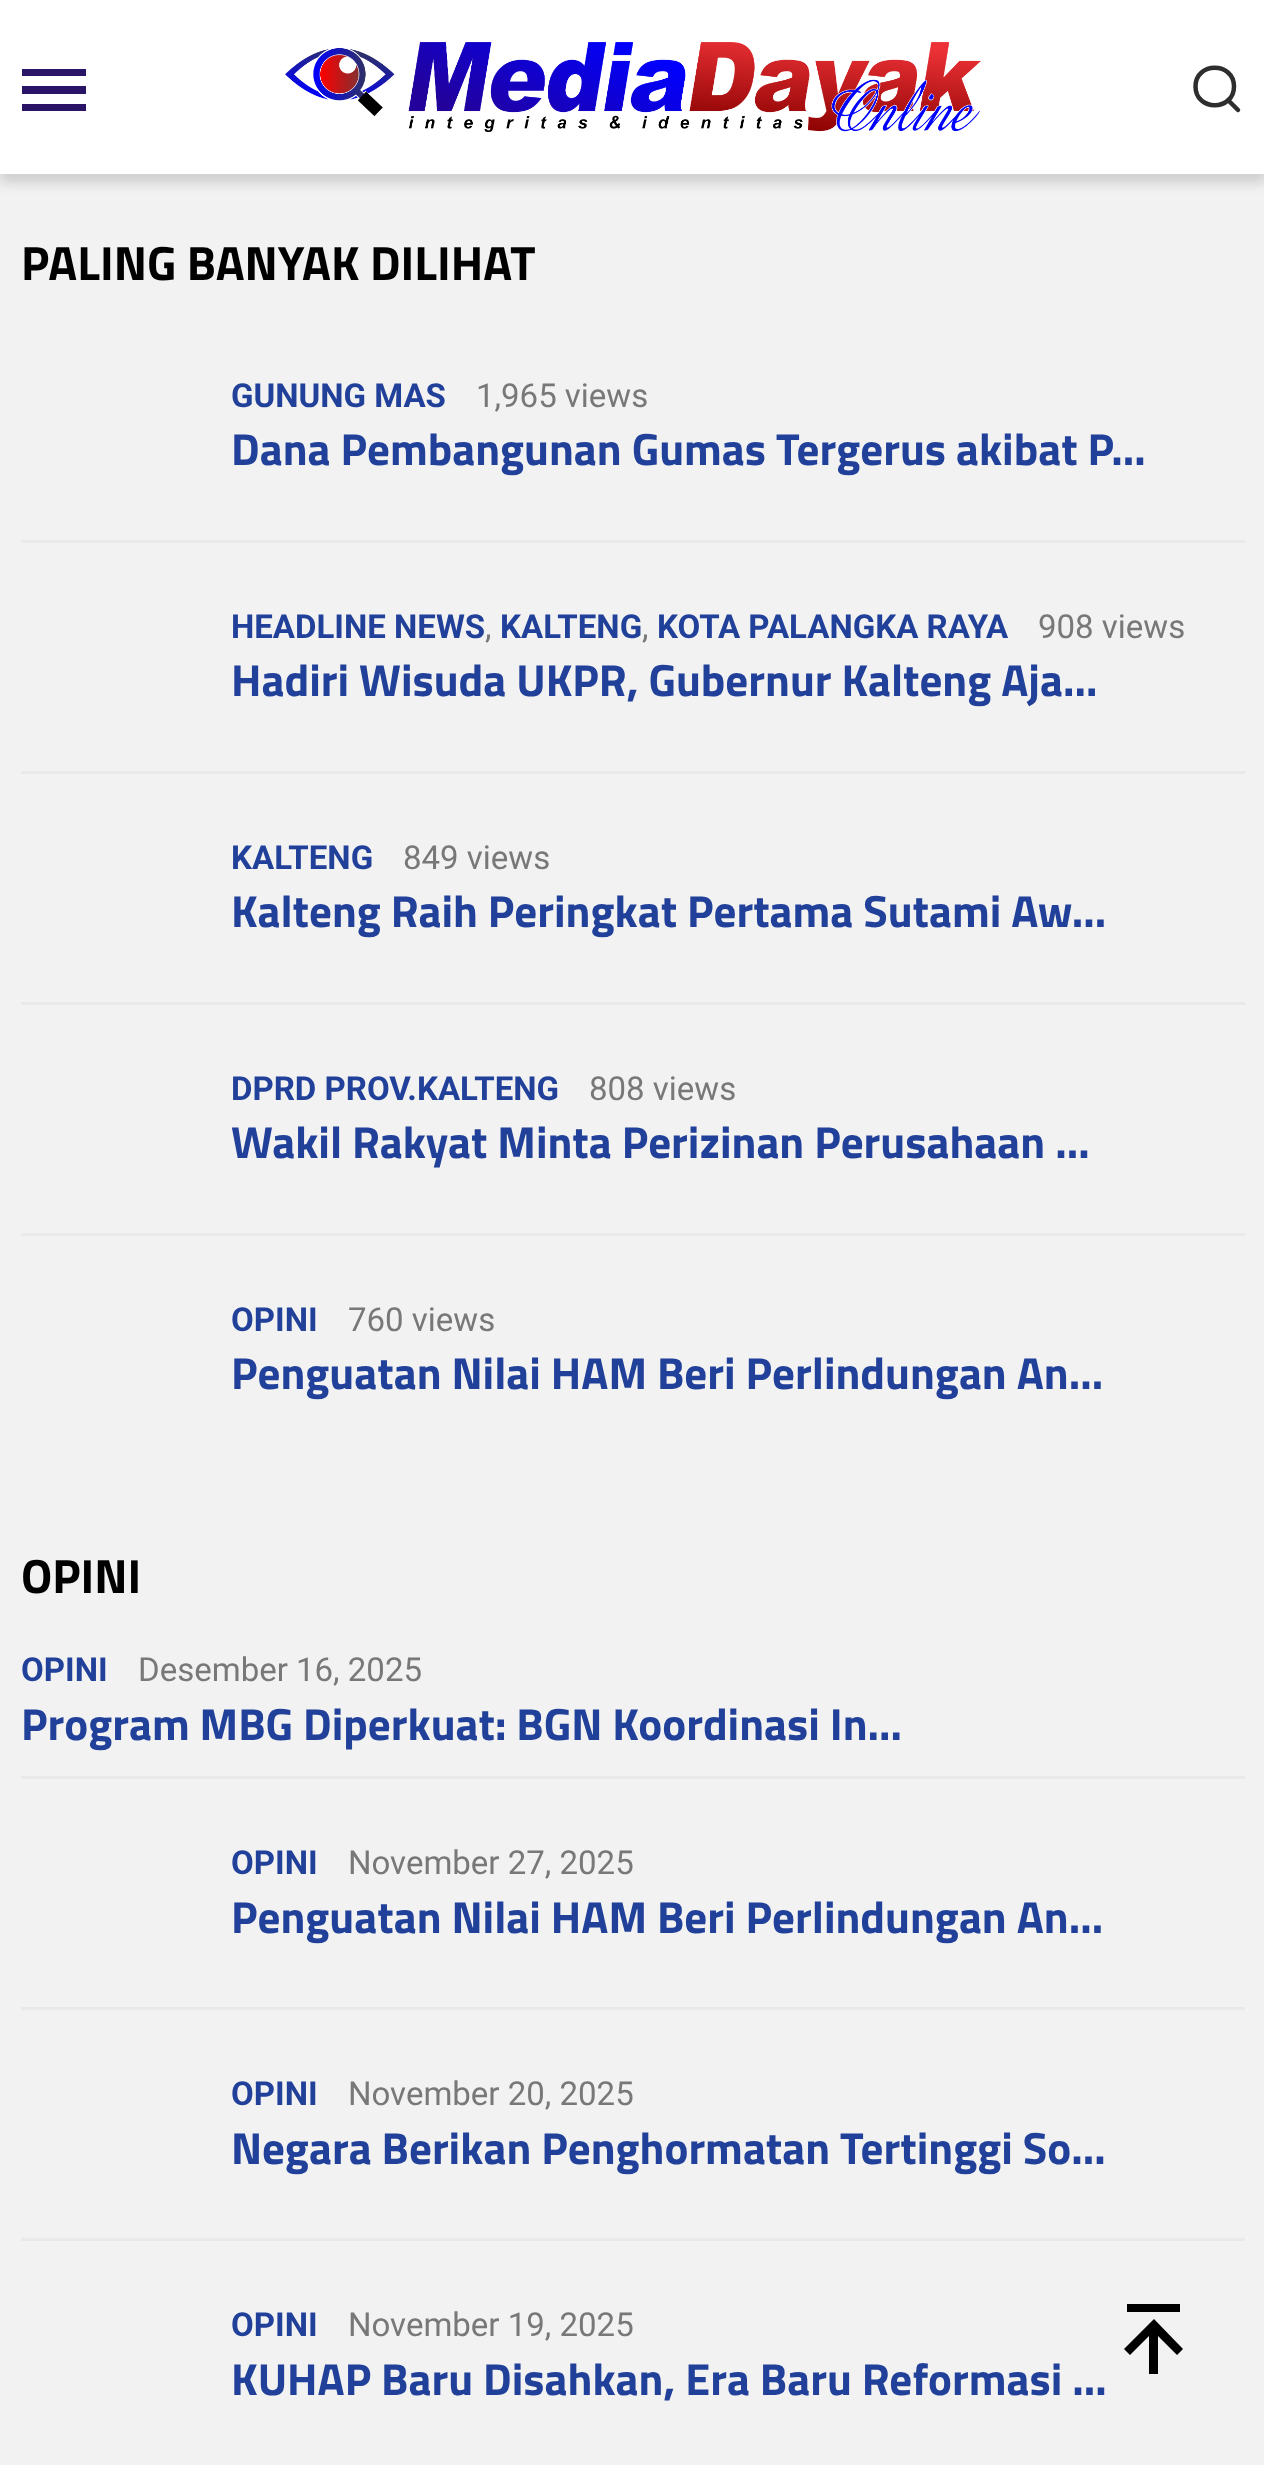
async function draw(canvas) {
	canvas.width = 1264;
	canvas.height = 2465;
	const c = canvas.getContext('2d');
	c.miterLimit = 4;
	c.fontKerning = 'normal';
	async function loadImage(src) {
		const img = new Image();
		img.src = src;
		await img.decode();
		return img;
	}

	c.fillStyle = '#f2f2f2';
	c.fillRect(0, 0, 1264, 2465);
	c.fillStyle = '#3434342e';
	c.filter = 'blur(6px)';
	c.beginPath();
	c.rect(0, 9, 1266, 174);
	c.fill();
	c.filter = 'none';
	c.fillStyle = '#fff';
	c.fillRect(0, 0, 1264, 174);
	c.fillStyle = '#291468';
	c.beginPath();
	c.moveTo(22, 69);
	c.lineTo(86, 69);
	c.lineTo(86, 76);
	c.lineTo(22, 76);
	c.lineTo(22, 69);
	c.moveTo(22, 86);
	c.lineTo(86, 86);
	c.lineTo(86, 94);
	c.lineTo(22, 94);
	c.lineTo(22, 86);
	c.moveTo(22, 104);
	c.lineTo(86, 104);
	c.lineTo(86, 111);
	c.lineTo(22, 111);
	c.closePath();
	c.fill();
	c.drawImage(await loadImage('img1.png'), 285, 42, 696, 90);
	c.beginPath();
	c.moveTo(1238, 110);
	c.lineTo(1228, 100);
	c.moveTo(1234, 86.5);
	c.bezierCurveTo(1234, 111.5, 1195.5, 111.5, 1195.5, 86.5);
	c.bezierCurveTo(1195.5, 61.5, 1234, 61.5, 1234, 86.5);
	c.closePath();
	c.strokeStyle = '#2e2e2e';
	c.lineWidth = 4.5;
	c.lineCap = 'round';
	c.stroke();
	c.font = 'bold 48px Titillium Web';
	c.fillStyle = '#000';
	c.fillText('PALING BANYAK DILIHAT', 21, 280);
	c.fillStyle = '#e9e9e9';
	c.fillRect(21, 540, 1224, 3);
	c.font = 'bold 33px Roboto';
	c.fillStyle = '#21409a';
	c.fillText('GUNUNG MAS', 231, 407);
	c.font = '33px Roboto';
	c.fillStyle = '#787878';
	c.fillText('1,965 views', 476, 407);
	c.font = 'bold 45px Titillium Web';
	c.fillStyle = '#21409a';
	c.fillText('Dana Pembangunan Gumas Tergerus akibat P…', 231, 465);
	c.fillStyle = '#e9e9e9';
	c.fillRect(21, 771, 1224, 3);
	c.font = 'bold 33px Roboto';
	c.fillStyle = '#21409a';
	c.fillText('HEADLINE NEWS', 231, 638);
	c.font = '33px Roboto';
	c.fillStyle = '#787878';
	c.fillText(',', 485, 638);
	c.font = 'bold 33px Roboto';
	c.fillStyle = '#21409a';
	c.fillText('KALTENG', 500, 638);
	c.font = '33px Roboto';
	c.fillStyle = '#787878';
	c.fillText(',', 642, 638);
	c.font = 'bold 33px Roboto';
	c.fillStyle = '#21409a';
	c.fillText('KOTA PALANGKA RAYA', 657, 638);
	c.font = '33px Roboto';
	c.fillStyle = '#787878';
	c.fillText('908 views', 1038, 638);
	c.font = 'bold 45px Titillium Web';
	c.fillStyle = '#21409a';
	c.fillText('Hadiri Wisuda UKPR, Gubernur Kalteng Aja…', 231, 696);
	c.fillStyle = '#e9e9e9';
	c.fillRect(21, 1002, 1224, 3);
	c.font = 'bold 33px Roboto';
	c.fillStyle = '#21409a';
	c.fillText('KALTENG', 231, 869);
	c.font = '33px Roboto';
	c.fillStyle = '#787878';
	c.fillText('849 views', 403, 869);
	c.font = 'bold 45px Titillium Web';
	c.fillStyle = '#21409a';
	c.fillText('Kalteng Raih Peringkat Pertama Sutami Aw…', 231, 927);
	c.fillStyle = '#e9e9e9';
	c.fillRect(21, 1233, 1224, 3);
	c.font = 'bold 33px Roboto';
	c.fillStyle = '#21409a';
	c.fillText('DPRD PROV.KALTENG', 231, 1100);
	c.font = '33px Roboto';
	c.fillStyle = '#787878';
	c.fillText('808 views', 589, 1100);
	c.font = 'bold 45px Titillium Web';
	c.fillStyle = '#21409a';
	c.fillText('Wakil Rakyat Minta Perizinan Perusahaan …', 231, 1158);
	c.font = 'bold 33px Roboto';
	c.fillText('OPINI', 231, 1331);
	c.font = '33px Roboto';
	c.fillStyle = '#787878';
	c.fillText('760 views', 348, 1331);
	c.font = 'bold 45px Titillium Web';
	c.fillStyle = '#21409a';
	c.fillText('Penguatan Nilai HAM Beri Perlindungan An…', 231, 1389);
	c.font = 'bold 48px Titillium Web';
	c.fillStyle = '#000';
	c.fillText('OPINI', 21, 1593);
	c.fillStyle = '#e9e9e9';
	c.fillRect(21, 1776, 1224, 3);
	c.font = 'bold 33px Roboto';
	c.fillStyle = '#21409a';
	c.fillText('OPINI', 21, 1681);
	c.font = '33px Roboto';
	c.fillStyle = '#787878';
	c.fillText('Desember 16, 2025', 138, 1681);
	c.font = 'bold 45px Titillium Web';
	c.fillStyle = '#21409a';
	c.fillText('Program MBG Diperkuat: BGN Koordinasi In…', 21, 1740);
	c.fillStyle = '#e9e9e9';
	c.fillRect(21, 2007, 1224, 3);
	c.font = 'bold 33px Roboto';
	c.fillStyle = '#21409a';
	c.fillText('OPINI', 231, 1874);
	c.font = '33px Roboto';
	c.fillStyle = '#787878';
	c.fillText('November 27, 2025', 348, 1874);
	c.font = 'bold 45px Titillium Web';
	c.fillStyle = '#21409a';
	c.fillText('Penguatan Nilai HAM Beri Perlindungan An…', 231, 1933);
	c.fillStyle = '#e9e9e9';
	c.fillRect(21, 2238, 1224, 3);
	c.font = 'bold 33px Roboto';
	c.fillStyle = '#21409a';
	c.fillText('OPINI', 231, 2105);
	c.font = '33px Roboto';
	c.fillStyle = '#787878';
	c.fillText('November 20, 2025', 348, 2105);
	c.font = 'bold 45px Titillium Web';
	c.fillStyle = '#21409a';
	c.fillText('Negara Berikan Penghormatan Tertinggi So…', 231, 2164);
	c.font = 'bold 33px Roboto';
	c.fillText('OPINI', 231, 2336);
	c.font = '33px Roboto';
	c.fillStyle = '#787878';
	c.fillText('November 19, 2025', 348, 2336);
	c.font = 'bold 45px Titillium Web';
	c.fillStyle = '#21409a';
	c.fillText('KUHAP Baru Disahkan, Era Baru Reformasi …', 231, 2395);
	c.fillStyle = '#000';
	c.beginPath();
	c.moveTo(1127, 2304);
	c.lineTo(1180, 2304);
	c.lineTo(1180, 2312);
	c.lineTo(1127, 2312);
	c.closePath();
	c.moveTo(1130, 2355);
	c.lineTo(1149, 2336);
	c.lineTo(1149, 2374);
	c.lineTo(1158, 2374);
	c.lineTo(1158, 2336);
	c.lineTo(1177, 2355);
	c.lineTo(1183, 2349);
	c.lineTo(1154, 2319);
	c.lineTo(1124, 2349);
	c.closePath();
	c.fill();
}

draw(document.querySelector('canvas'));
